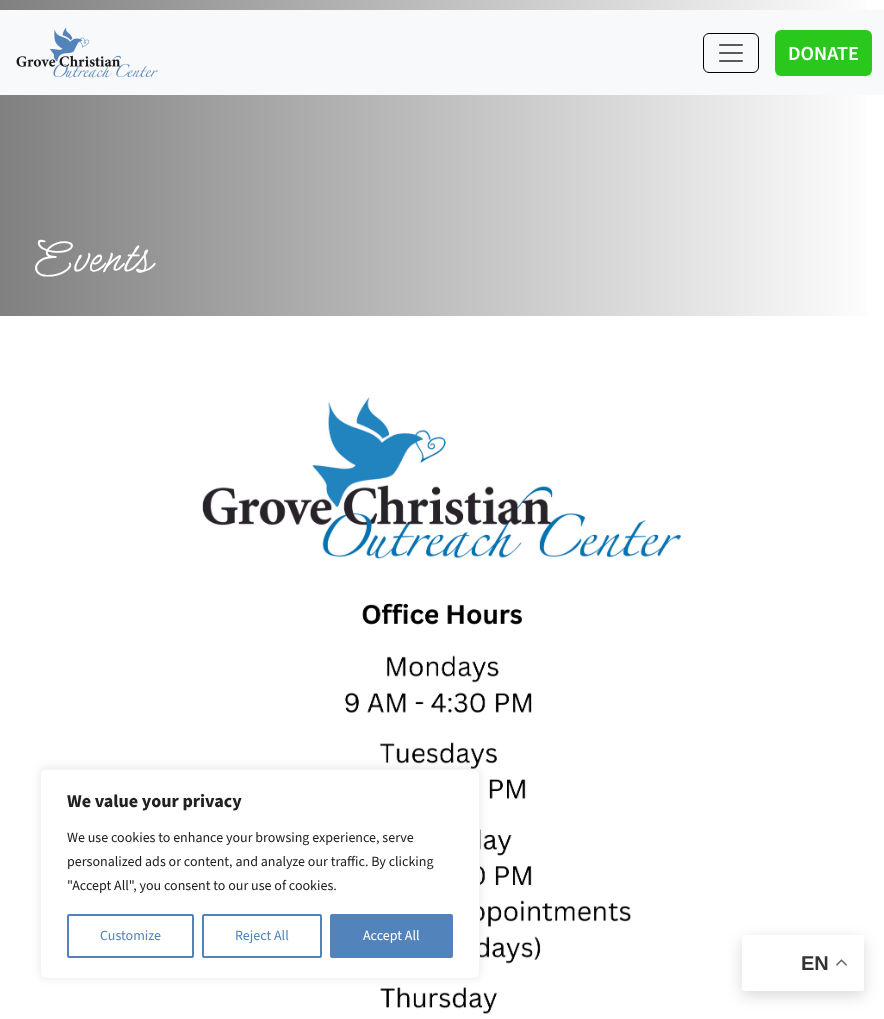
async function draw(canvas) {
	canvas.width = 884;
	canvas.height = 1019;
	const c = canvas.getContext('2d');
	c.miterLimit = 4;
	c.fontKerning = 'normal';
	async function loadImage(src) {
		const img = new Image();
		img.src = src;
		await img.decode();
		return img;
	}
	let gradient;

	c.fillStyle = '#fff';
	c.fillRect(0, 0, 884, 1019);
	gradient = c.createLinearGradient(0, 158, 884, 158);
	gradient.addColorStop(0, '#808080');
	gradient.addColorStop(1, '#fff');
	c.fillStyle = gradient;
	c.fillRect(0, 0, 867, 316);
	c.fillStyle = '#f8f9fa';
	c.fillRect(0, 10, 884, 85);
	c.drawImage(await loadImage('img1.png'), 16, 27, 142, 51);
	c.beginPath();
	c.roundRect(703.5, 33.5, 55, 39, 5.5);
	c.strokeStyle = '#000';
	c.stroke();
	c.drawImage(await loadImage('img2.png'), 719, 44, 24, 18);
	c.fillStyle = '#2ac71d';
	c.beginPath();
	c.roundRect(775, 30, 97, 46, 6);
	c.fill();
	c.font = '600 20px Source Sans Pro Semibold';
	c.fillStyle = '#fff';
	c.fillText('DONATE', 788, 60);
	c.font = '51px Meow Script';
	c.fillText('Events', 31, 271);
	c.drawImage(await loadImage('img3.png'), 202, 397, 480, 617);
	c.fillStyle = '#acabab4d';
	c.filter = 'blur(5px)';
	c.beginPath();
	c.roundRect(40, 768, 440, 210, 6);
	c.fill();
	c.filter = 'none';
	c.fillStyle = '#fff';
	c.beginPath();
	c.roundRect(40.5, 769.5, 439, 209, 5.5);
	c.fill();
	c.strokeStyle = '#f4f4f4';
	c.stroke();
	c.font = 'bold 18px Source Sans Pro';
	c.fillStyle = '#212121';
	c.fillText('We value your privacy', 67, 807);
	c.font = '14px Source Sans Pro';
	for (const [text, x, y] of [
		['We use cookies to enhance your browsing experience, serve', 67, 842],
		['personalized ads or content, and analyze our traffic. By clicking', 67, 866],
		['"Accept All", you consent to our use of cookies.', 67, 890],
	]) {
		c.fillText(text, x, y);
	}
	c.beginPath();
	c.roundRect(68, 915, 125, 42, 1);
	c.strokeStyle = '#5383bb';
	c.lineWidth = 2;
	c.stroke();
	c.fillStyle = '#5383bb';
	c.fillText('Customize', 100, 940);
	c.beginPath();
	c.roundRect(203, 915, 118, 42, 1);
	c.stroke();
	c.fillText('Reject All', 235, 940);
	c.beginPath();
	c.roundRect(331, 915, 121, 42, 1);
	c.fill();
	c.stroke();
	c.fillStyle = '#fff';
	c.fillText('Accept All', 363, 940);
	c.fillStyle = '#00000026';
	c.filter = 'blur(7.5px)';
	c.beginPath();
	c.roundRect(742, 940, 122, 56, 2);
	c.fill();
	c.filter = 'none';
	c.fillStyle = '#fff';
	c.beginPath();
	c.roundRect(742, 935, 122, 56, 2);
	c.fill();
	c.font = 'bold 20px Liberation Sans';
	c.fillStyle = '#333';
	c.fillText('EN', 801, 970);
	c.drawImage(await loadImage('img4.png'), 836, 959, 11, 7);
}

draw(document.querySelector('canvas'));
